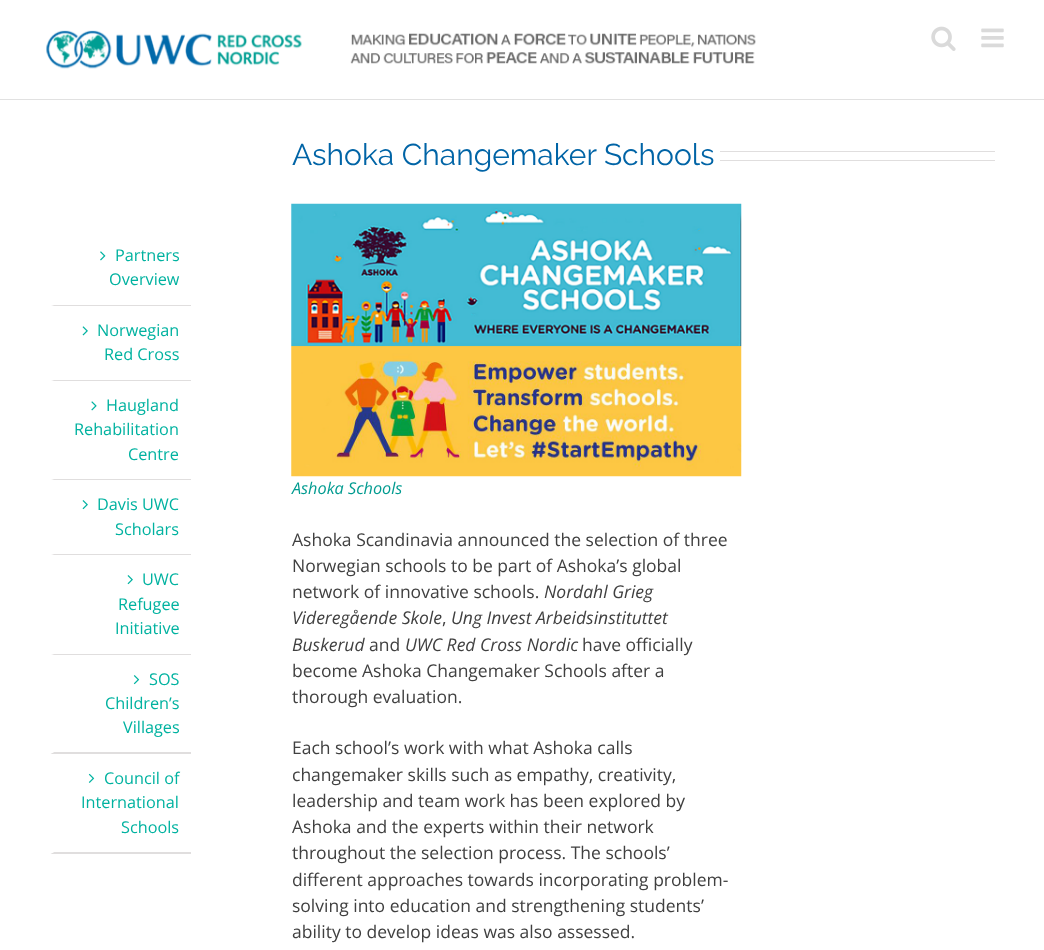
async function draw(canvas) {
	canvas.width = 1044;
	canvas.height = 950;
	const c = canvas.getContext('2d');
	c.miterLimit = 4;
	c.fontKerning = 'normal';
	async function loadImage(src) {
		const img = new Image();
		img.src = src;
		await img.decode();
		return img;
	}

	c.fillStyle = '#fff';
	c.fillRect(0, 0, 1044, 950);
	c.fillStyle = '#e1e1e1';
	c.fillRect(0, 99, 1044, 1);
	c.drawImage(await loadImage('img1.png'), 46, 30, 710, 39);
	c.drawImage(await loadImage('img2.png'), 931, 26, 25, 25);
	c.drawImage(await loadImage('img3.png'), 981, 28, 23, 20);
	c.fillStyle = '#e0dede';
	c.beginPath();
	c.moveTo(191, 306);
	c.lineTo(50, 306);
	c.lineTo(54, 305);
	c.lineTo(191, 305);
	c.closePath();
	c.fill();
	c.fillStyle = '#fff';
	c.beginPath();
	c.moveTo(50, 306);
	c.lineTo(50, 231);
	c.lineTo(54, 231);
	c.lineTo(54, 305);
	c.closePath();
	c.fill();
	c.drawImage(await loadImage('img4.png'), 100, 251, 6, 10);
	c.font = '16.25px Open Sans';
	c.fillStyle = '#00b2a0';
	c.fillText('Partners', 115, 261);
	c.fillText('Overview', 109, 285);
	c.fillStyle = '#e0dede';
	c.beginPath();
	c.moveTo(191, 381);
	c.lineTo(50, 381);
	c.lineTo(54, 380);
	c.lineTo(191, 380);
	c.closePath();
	c.fill();
	c.fillStyle = '#fff';
	c.beginPath();
	c.moveTo(50, 381);
	c.lineTo(50, 306);
	c.lineTo(54, 306);
	c.lineTo(54, 380);
	c.closePath();
	c.fill();
	c.drawImage(await loadImage('img5.png'), 82, 326, 6, 10);
	c.fillStyle = '#00b2a0';
	c.fillText('Norwegian', 97, 336);
	c.fillText('Red Cross', 104, 360);
	c.fillStyle = '#e0dede';
	c.beginPath();
	c.moveTo(191, 480);
	c.lineTo(50, 480);
	c.lineTo(54, 479);
	c.lineTo(191, 479);
	c.closePath();
	c.fill();
	c.fillStyle = '#fff';
	c.beginPath();
	c.moveTo(50, 480);
	c.lineTo(50, 381);
	c.lineTo(54, 381);
	c.lineTo(54, 479);
	c.closePath();
	c.fill();
	c.drawImage(await loadImage('img6.png'), 91, 401, 6, 10);
	c.fillStyle = '#00b2a0';
	for (const [text, x, y] of [
		['Haugland', 106, 411],
		['Rehabilitation', 74, 435],
		['Centre', 128, 460],
	]) {
		c.fillText(text, x, y);
	}
	c.fillStyle = '#e0dede';
	c.beginPath();
	c.moveTo(191, 555);
	c.lineTo(50, 555);
	c.lineTo(54, 554);
	c.lineTo(191, 554);
	c.closePath();
	c.fill();
	c.fillStyle = '#fff';
	c.beginPath();
	c.moveTo(50, 555);
	c.lineTo(50, 480);
	c.lineTo(54, 480);
	c.lineTo(54, 554);
	c.closePath();
	c.fill();
	c.drawImage(await loadImage('img7.png'), 82, 500, 6, 10);
	c.fillStyle = '#00b2a0';
	c.fillText('Davis UWC', 97, 510);
	c.fillText('Scholars', 115, 535);
	c.fillStyle = '#e0dede';
	c.beginPath();
	c.moveTo(191, 655);
	c.lineTo(50, 655);
	c.lineTo(54, 654);
	c.lineTo(191, 654);
	c.closePath();
	c.fill();
	c.fillStyle = '#fff';
	c.beginPath();
	c.moveTo(50, 655);
	c.lineTo(50, 555);
	c.lineTo(54, 555);
	c.lineTo(54, 654);
	c.closePath();
	c.fill();
	c.drawImage(await loadImage('img7.png'), 127, 575, 6, 10);
	c.fillStyle = '#00b2a0';
	for (const [text, x, y] of [
		['UWC', 142, 585],
		['Refugee', 118, 610],
		['Initiative', 115, 634],
	]) {
		c.fillText(text, x, y);
	}
	c.fillStyle = '#e0dede';
	c.beginPath();
	c.moveTo(191, 754);
	c.lineTo(50, 754);
	c.lineTo(54, 752);
	c.lineTo(191, 752);
	c.closePath();
	c.fill();
	c.fillStyle = '#fff';
	c.beginPath();
	c.moveTo(50, 754);
	c.lineTo(50, 655);
	c.lineTo(54, 655);
	c.lineTo(54, 752);
	c.closePath();
	c.fill();
	c.drawImage(await loadImage('img8.png'), 133, 675, 7, 10);
	c.fillStyle = '#00b2a0';
	for (const [text, x, y] of [
		['SOS', 149, 685],
		['Children’s', 105, 709],
		['Villages', 123, 733],
	]) {
		c.fillText(text, x, y);
	}
	c.fillStyle = '#e0dede';
	c.beginPath();
	c.moveTo(191, 854);
	c.lineTo(50, 854);
	c.lineTo(54, 852);
	c.lineTo(191, 852);
	c.closePath();
	c.fill();
	c.fillStyle = '#fff';
	c.beginPath();
	c.moveTo(50, 854);
	c.lineTo(50, 754);
	c.lineTo(54, 754);
	c.lineTo(54, 852);
	c.closePath();
	c.fill();
	c.drawImage(await loadImage('img9.png'), 88, 773, 7, 10);
	c.fillStyle = '#00b2a0';
	for (const [text, x, y] of [
		['Council of', 104, 784],
		['International', 81, 808],
		['Schools', 121, 833],
	]) {
		c.fillText(text, x, y);
	}
	c.font = '30px Raleway';
	c.fillStyle = '#0064a6';
	c.fillText('Ashoka Changemaker Schools', 292, 165);
	c.fillStyle = '#e0dede';
	c.fillRect(720, 151, 275, 1);
	c.fillRect(720, 160, 275, 1);
	c.drawImage(await loadImage('img10.png'), 291, 203, 451, 274);
	c.font = 'italic 16.25px Open Sans';
	c.fillStyle = '#009b90';
	c.fillText('Ashoka Schools', 292, 494);
	c.font = '17.5px Open Sans';
	c.fillStyle = '#404040';
	for (const [text, x, y] of [
		['Ashoka Scandinavia announced the selection of three', 292, 546],
		['Norwegian schools to be part of Ashoka’s global', 292, 572],
		['network of innovative schools.', 292, 598],
	]) {
		c.fillText(text, x, y);
	}
	c.font = 'italic 17.5px Open Sans';
	c.fillText('Nordahl Grieg', 544, 598);
	c.fillText('Videregående Skole', 292, 624);
	c.font = '17.5px Open Sans';
	c.fillText(',', 442, 624);
	c.font = 'italic 17.5px Open Sans';
	c.fillText('Ung Invest Arbeidsinstituttet', 451, 624);
	c.fillText('Buskerud', 292, 651);
	c.font = '17.5px Open Sans';
	c.fillText('and', 369, 651);
	c.font = 'italic 17.5px Open Sans';
	c.fillText('UWC Red Cross Nordic', 405, 651);
	c.font = '17.5px Open Sans';
	for (const [text, x, y] of [
		['have officially', 582, 651],
		['become Ashoka Changemaker Schools after a', 292, 677],
		['thorough evaluation.', 292, 703],
		['Each school’s work with what Ashoka calls', 292, 754],
		['changemaker skills such as empathy, creativity,', 292, 781],
		['leadership and team work has been explored by', 292, 807],
		['Ashoka and the experts within their network', 292, 833],
		['throughout the selection process. The schools’', 292, 859],
		['different approaches towards incorporating problem-', 292, 886],
		['solving into education and strengthening students’', 292, 912],
		['ability to develop ideas was also assessed.', 292, 938],
	]) {
		c.fillText(text, x, y);
	}
}

draw(document.querySelector('canvas'));
